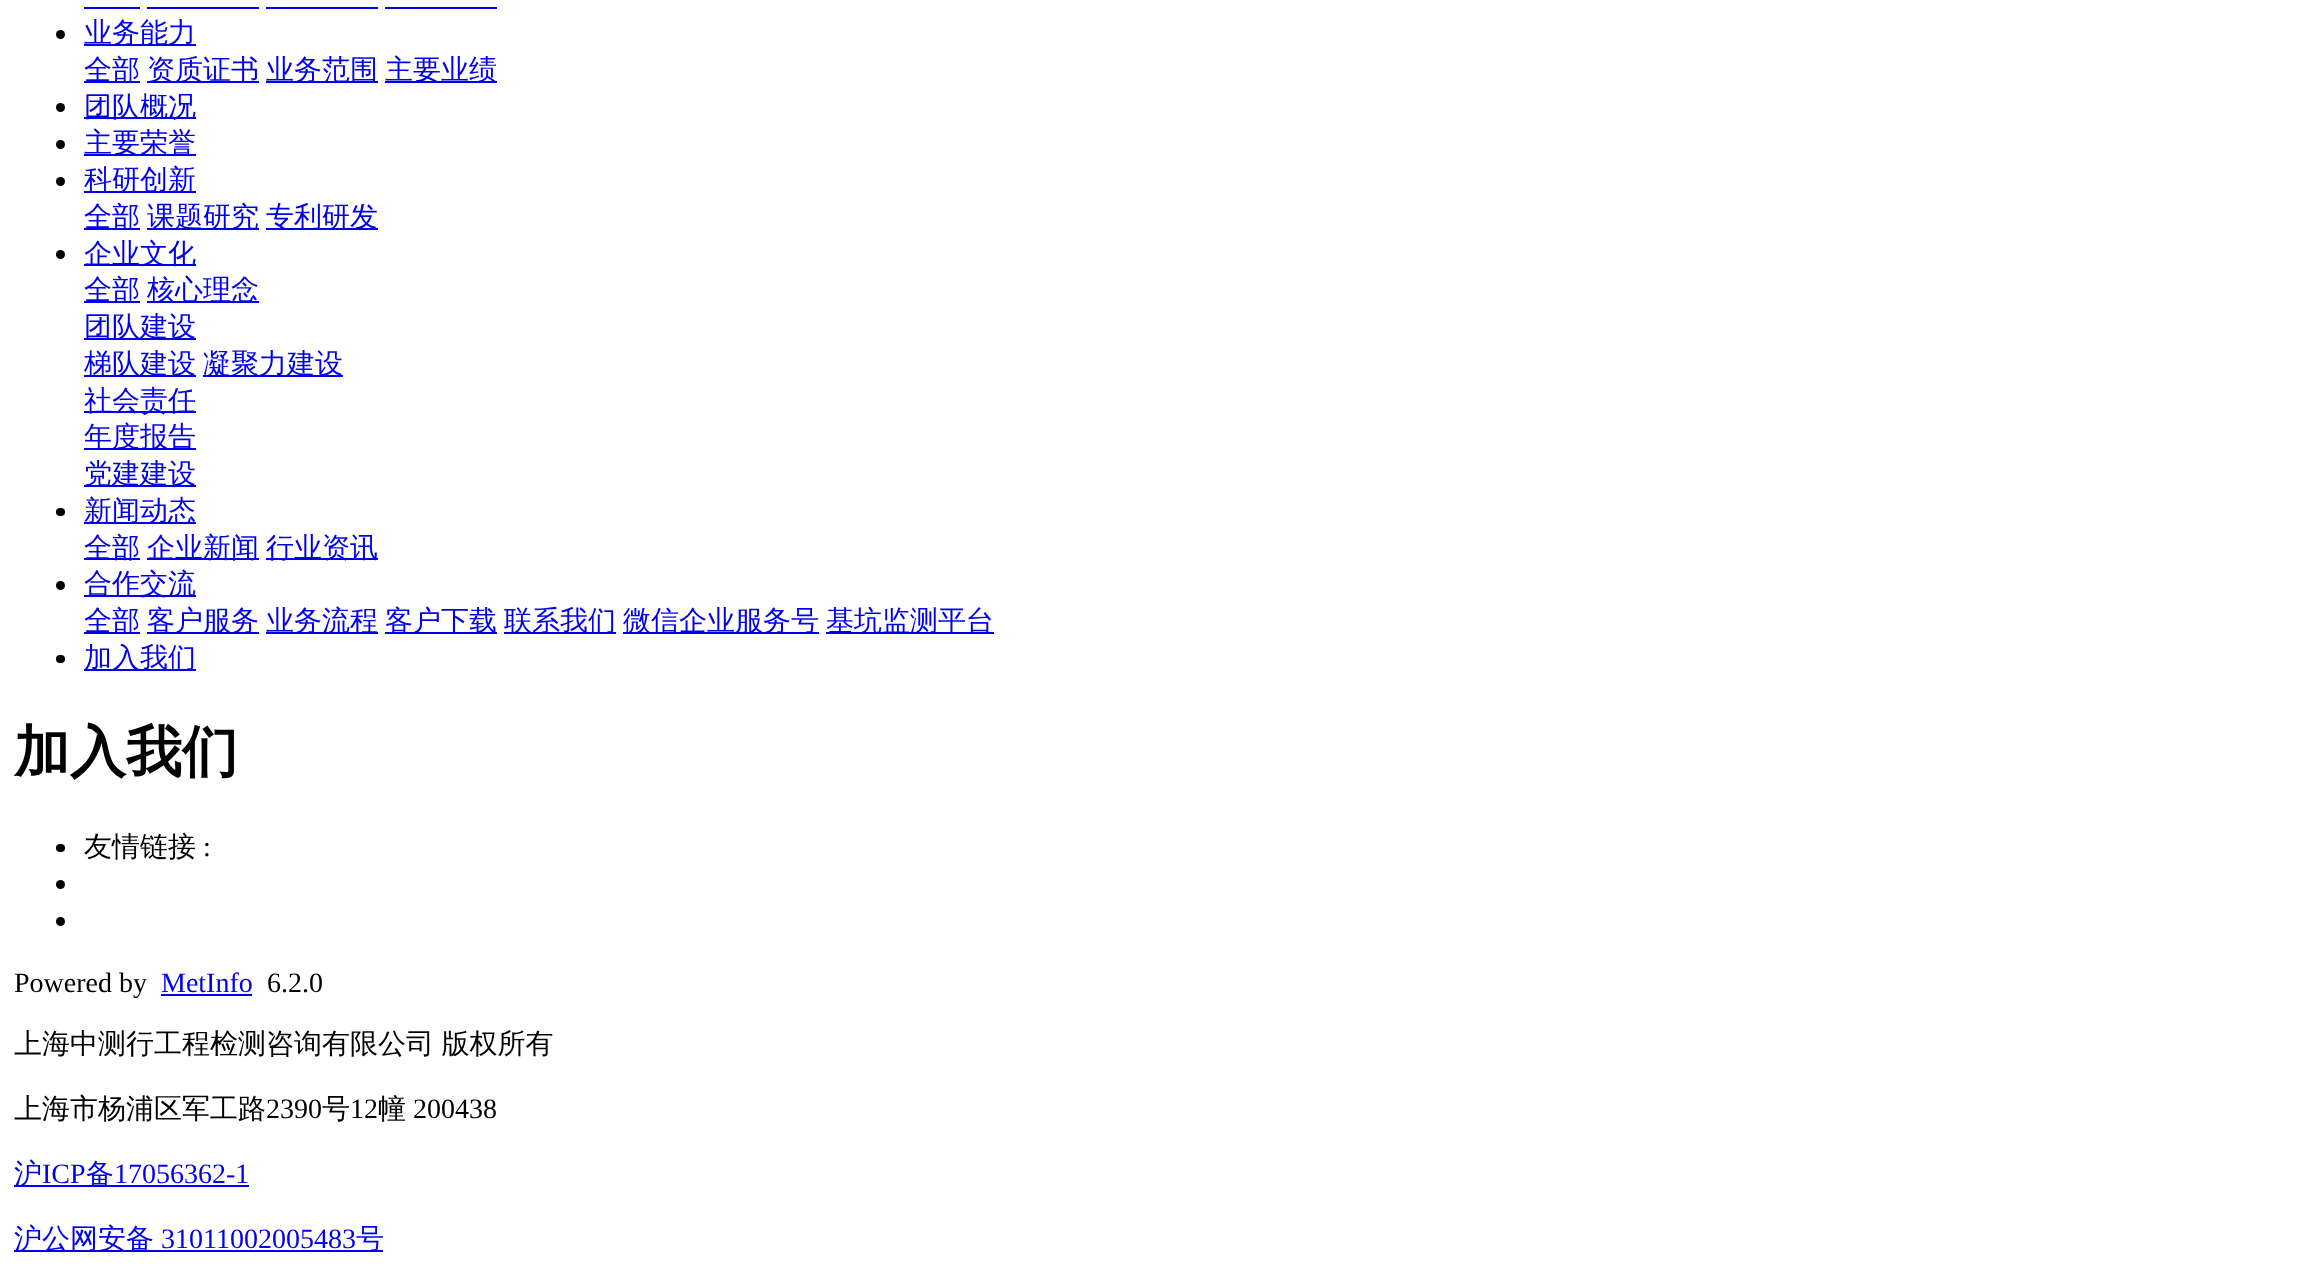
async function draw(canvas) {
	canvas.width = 2302;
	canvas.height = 1286;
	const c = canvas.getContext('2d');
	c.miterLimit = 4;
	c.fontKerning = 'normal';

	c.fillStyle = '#fff';
	c.fillRect(0, 0, 2302, 1286);
	for (const [x, y, w, h, color] of [
		[84, 7, 56, 2, '#00e'],
		[147, 7, 112, 2, '#00e'],
		[266, 7, 112, 2, '#00e'],
		[385, 7, 112, 2, '#00e'],
	]) {
		c.fillStyle = color;
		c.fillRect(x, y, w, h);
	}
	c.fillStyle = '#000';
	c.beginPath();
	c.arc(60.5, 34.5, 4.5, 0, 2 * Math.PI);
	c.fill();
	c.fillStyle = '#00e';
	c.fillRect(84, 44, 112, 2);
	c.font = '500 28px WenQuanYi Zen Hei';
	c.fillText('业务能力', 84, 42);
	c.fillRect(84, 81, 56, 2);
	c.fillText('全部', 84, 79);
	c.fillRect(147, 81, 112, 2);
	c.fillText('资质证书', 147, 79);
	c.fillRect(266, 81, 112, 2);
	c.fillText('业务范围', 266, 79);
	c.fillRect(385, 81, 112, 2);
	c.fillText('主要业绩', 385, 79);
	c.fillStyle = '#000';
	c.beginPath();
	c.arc(60.5, 107.5, 4.5, 0, 2 * Math.PI);
	c.fill();
	c.fillStyle = '#00e';
	c.fillRect(84, 117, 112, 2);
	c.fillText('团队概况', 84, 116);
	c.fillStyle = '#000';
	c.beginPath();
	c.arc(60.5, 144.5, 4.5, 0, 2 * Math.PI);
	c.fill();
	c.fillStyle = '#00e';
	c.fillRect(84, 154, 112, 2);
	c.fillText('主要荣誉', 84, 152);
	c.fillStyle = '#000';
	c.beginPath();
	c.arc(60.5, 181.5, 4.5, 0, 2 * Math.PI);
	c.fill();
	c.fillStyle = '#00e';
	c.fillRect(84, 191, 112, 2);
	c.fillText('科研创新', 84, 189);
	c.fillRect(84, 228, 56, 2);
	c.fillText('全部', 84, 226);
	c.fillRect(147, 228, 112, 2);
	c.fillText('课题研究', 147, 226);
	c.fillRect(266, 228, 112, 2);
	c.fillText('专利研发', 266, 226);
	c.fillStyle = '#000';
	c.beginPath();
	c.arc(60.5, 254.5, 4.5, 0, 2 * Math.PI);
	c.fill();
	c.fillStyle = '#00e';
	c.fillRect(84, 264, 112, 2);
	c.fillText('企业文化', 84, 263);
	c.fillRect(84, 301, 56, 2);
	c.fillText('全部', 84, 299);
	c.fillRect(147, 301, 112, 2);
	c.fillText('核心理念', 147, 299);
	c.fillRect(84, 338, 112, 2);
	c.fillText('团队建设', 84, 336);
	c.fillRect(84, 375, 112, 2);
	c.fillText('梯队建设', 84, 373);
	c.fillRect(203, 375, 140, 2);
	c.fillText('凝聚力建设', 203, 373);
	c.fillRect(84, 411, 112, 2);
	c.fillText('社会责任', 84, 410);
	c.fillRect(84, 448, 112, 2);
	c.fillText('年度报告', 84, 446);
	c.fillRect(84, 485, 112, 2);
	c.fillText('党建建设', 84, 483);
	c.fillStyle = '#000';
	c.beginPath();
	c.roundRect(56, 508, 9, 8, 4);
	c.fill();
	c.fillStyle = '#00e';
	c.fillRect(84, 522, 112, 2);
	c.fillText('新闻动态', 84, 520);
	c.fillRect(84, 558, 56, 2);
	c.fillText('全部', 84, 557);
	c.fillRect(147, 558, 112, 2);
	c.fillText('企业新闻', 147, 557);
	c.fillRect(266, 558, 112, 2);
	c.fillText('行业资讯', 266, 557);
	c.fillStyle = '#000';
	c.beginPath();
	c.arc(60.5, 585.5, 4.5, 0, 2 * Math.PI);
	c.fill();
	c.fillStyle = '#00e';
	c.fillRect(84, 595, 112, 2);
	c.fillText('合作交流', 84, 593);
	c.fillRect(84, 632, 56, 2);
	c.fillText('全部', 84, 630);
	c.fillRect(147, 632, 112, 2);
	c.fillText('客户服务', 147, 630);
	c.fillRect(266, 632, 112, 2);
	c.fillText('业务流程', 266, 630);
	c.fillRect(385, 632, 112, 2);
	c.fillText('客户下载', 385, 630);
	c.fillRect(504, 632, 112, 2);
	c.fillText('联系我们', 504, 630);
	c.fillRect(623, 632, 196, 2);
	c.fillText('微信企业服务号', 623, 630);
	c.fillRect(826, 632, 168, 2);
	c.fillText('基坑监测平台', 826, 630);
	c.fillStyle = '#000';
	c.beginPath();
	c.roundRect(56, 655, 9, 8, 4);
	c.fill();
	c.fillStyle = '#00e';
	c.fillRect(84, 669, 112, 2);
	c.fillText('加入我们', 84, 667);
	c.font = 'bold 56px WenQuanYi Zen Hei';
	c.fillStyle = '#000';
	c.fillText('加入我们', 14, 771);
	c.beginPath();
	c.roundRect(56, 844, 9, 8, 4);
	c.fill();
	c.font = '500 28px WenQuanYi Zen Hei';
	c.fillText('友情链接', 84, 856);
	c.font = '28px Liberation Serif';
	c.fillText(':', 203, 856);
	c.beginPath();
	c.arc(60.5, 884.5, 4.5, 0, 2 * Math.PI);
	c.fill();
	c.beginPath();
	c.arc(60.5, 921.5, 4.5, 0, 2 * Math.PI);
	c.fill();
	c.fillText('Powered by', 14, 992);
	c.fillStyle = '#00e';
	c.fillText('MetInfo', 161, 992);
	c.fillRect(161, 994, 91, 2);
	c.fillStyle = '#000';
	c.fillText('6.2.0', 267, 992);
	c.wordSpacing = '-1px';
	c.font = '500 28px WenQuanYi Zen Hei';
	c.fillText('上海中测行工程检测咨询有限公司 版权所有', 14, 1053);
	c.wordSpacing = '0px';
	c.fillText('上海市杨浦区军工路', 14, 1118);
	c.font = '28px Liberation Serif';
	c.fillText('2390', 266, 1118);
	c.font = '500 28px WenQuanYi Zen Hei';
	c.fillText('号', 322, 1118);
	c.font = '28px Liberation Serif';
	c.fillText('12', 350, 1118);
	c.font = '500 28px WenQuanYi Zen Hei';
	c.fillText('幢', 378, 1118);
	c.font = '28px Liberation Serif';
	c.fillText('200438', 413, 1118);
	c.fillStyle = '#00e';
	c.fillRect(14, 1185, 235, 2);
	c.font = '500 28px WenQuanYi Zen Hei';
	c.fillText('沪', 14, 1183);
	c.font = '28px Liberation Serif';
	c.fillText('ICP', 42, 1183);
	c.font = '500 28px WenQuanYi Zen Hei';
	c.fillText('备', 86, 1183);
	c.font = '28px Liberation Serif';
	c.fillText('17056362-1', 114, 1183);
	c.fillRect(14, 1250, 369, 2);
	c.font = '500 28px WenQuanYi Zen Hei';
	c.fillText('沪公网安备', 14, 1248);
	c.font = '28px Liberation Serif';
	c.fillText('31011002005483', 161, 1248);
	c.font = '500 28px WenQuanYi Zen Hei';
	c.fillText('号', 356, 1248);
}

draw(document.querySelector('canvas'));
